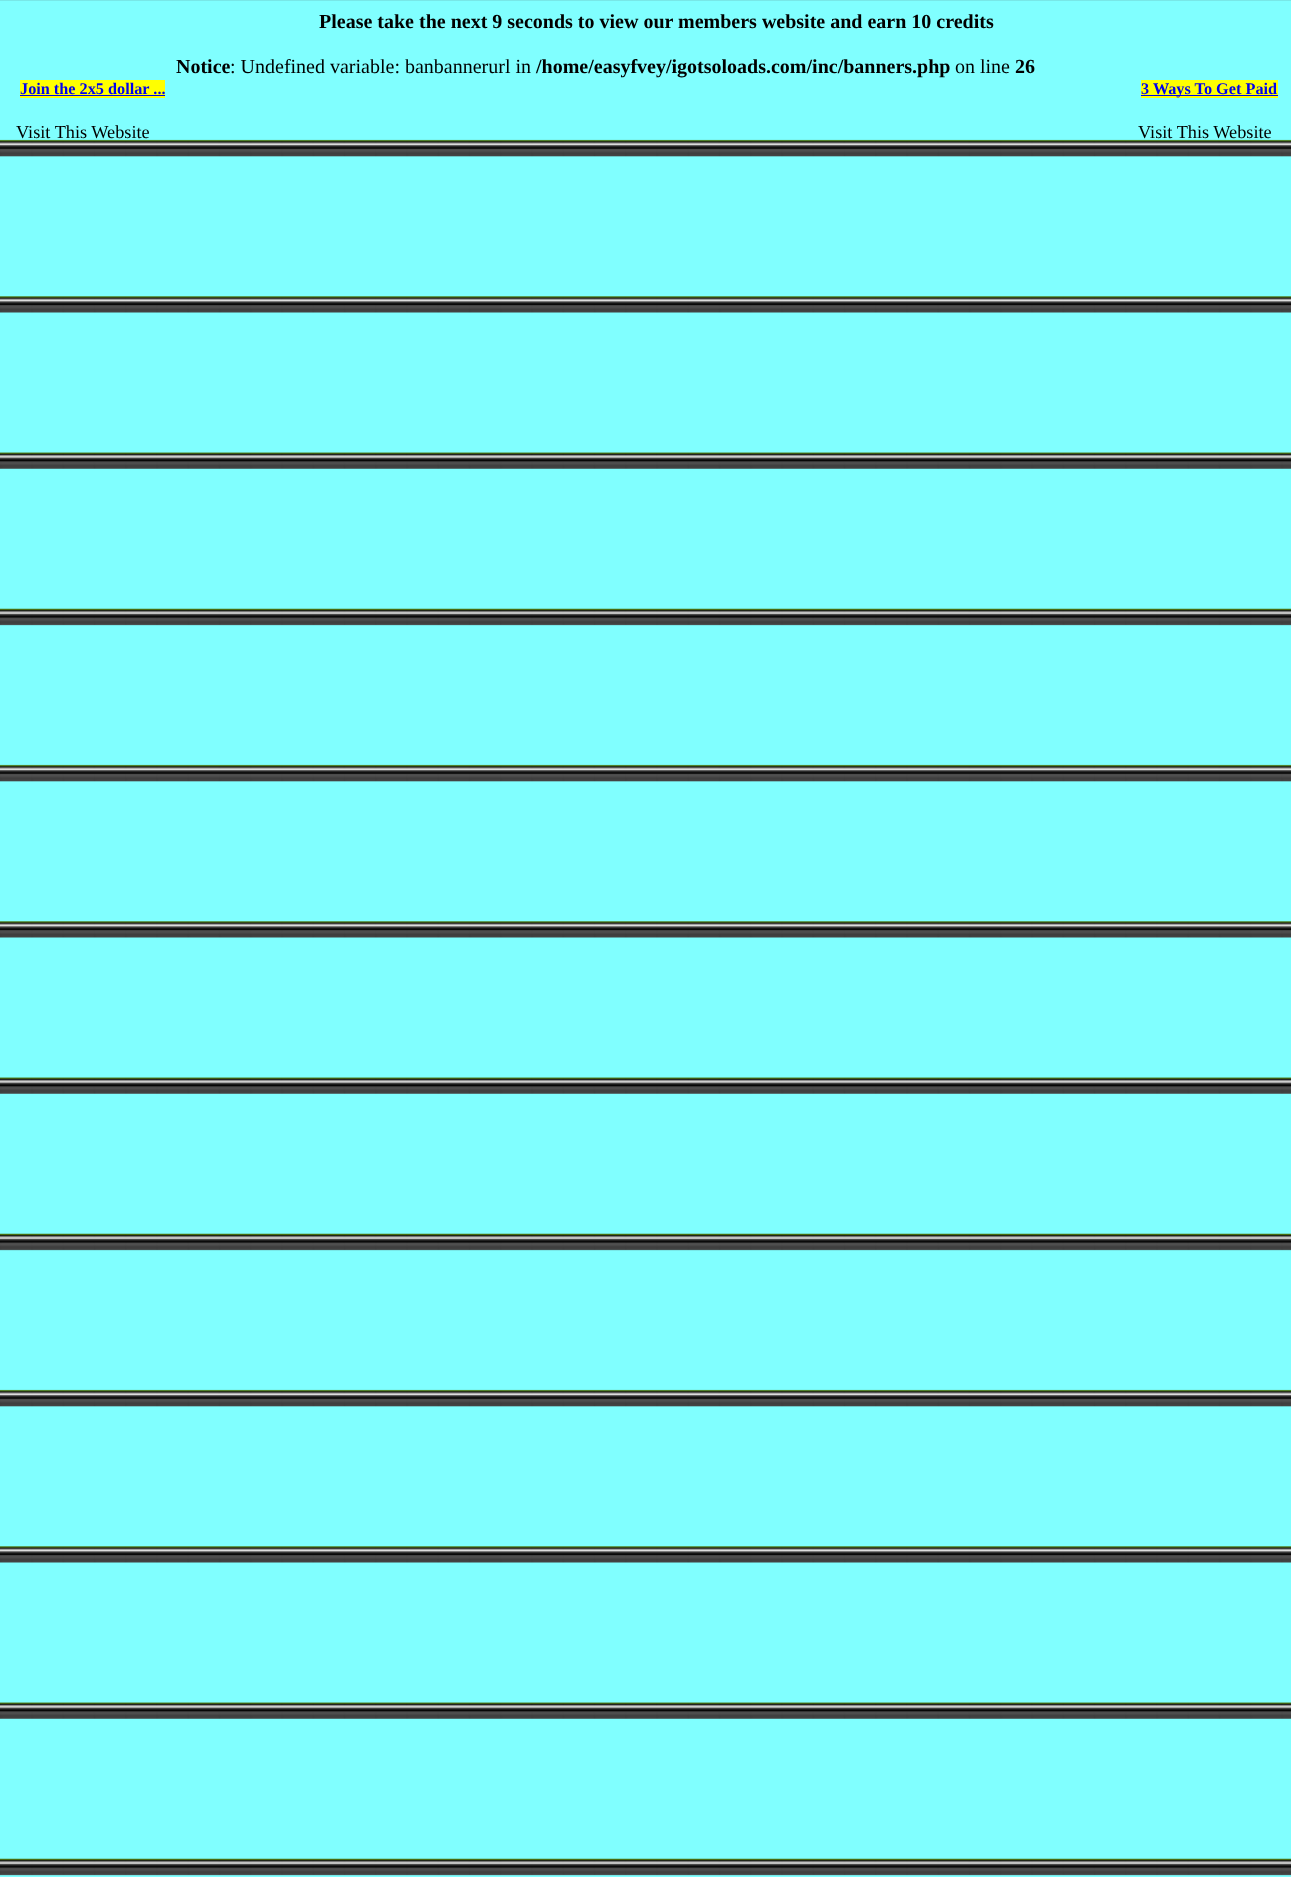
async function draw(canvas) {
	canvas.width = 1291;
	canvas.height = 1877;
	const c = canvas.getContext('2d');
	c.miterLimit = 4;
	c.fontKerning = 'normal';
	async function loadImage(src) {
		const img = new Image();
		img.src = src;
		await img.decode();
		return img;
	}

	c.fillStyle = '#fff';
	c.fillRect(0, 0, 1291, 1877);
	c.drawImage(await loadImage('img1.png'), 0, 0, 1291, 1877);
	c.font = 'bold 20px Liberation Serif';
	c.fillStyle = '#000';
	c.fillText('Please take the next 9 seconds to view our members website and earn 10 credits', 319, 28);
	c.fillText('Notice', 176, 73);
	c.font = '20px Liberation Serif';
	c.fillText(': Undefined variable: banbannerurl in', 230, 73);
	c.font = 'bold 20px Liberation Serif';
	c.fillText('/home/easyfvey/igotsoloads.com/inc/banners.php', 536, 73);
	c.font = '20px Liberation Serif';
	c.fillText('on line', 955, 73);
	c.font = 'bold 20px Liberation Serif';
	c.fillText('26', 1015, 73);
	c.fillStyle = '#ff0';
	c.fillRect(20, 80, 145, 18);
	c.font = 'bold 16.25px Liberation Serif';
	c.fillStyle = '#00e';
	c.fillText('Join the 2x5 dollar ...', 20, 94);
	c.fillRect(20, 95, 145, 1);
	c.font = '18.25px Liberation Serif';
	c.fillStyle = '#000';
	c.fillText('Visit This Website', 16, 138);
	c.fillStyle = '#ff0';
	c.fillRect(1141, 80, 137, 18);
	c.fillStyle = '#00e';
	c.fillRect(1141, 95, 137, 1);
	c.font = 'bold 16.25px Liberation Serif';
	c.fillText('3 Ways To Get Paid', 1141, 94);
	c.font = '18.25px Liberation Serif';
	c.fillStyle = '#000';
	c.fillText('Visit This Website', 1138, 138);
}

draw(document.querySelector('canvas'));
